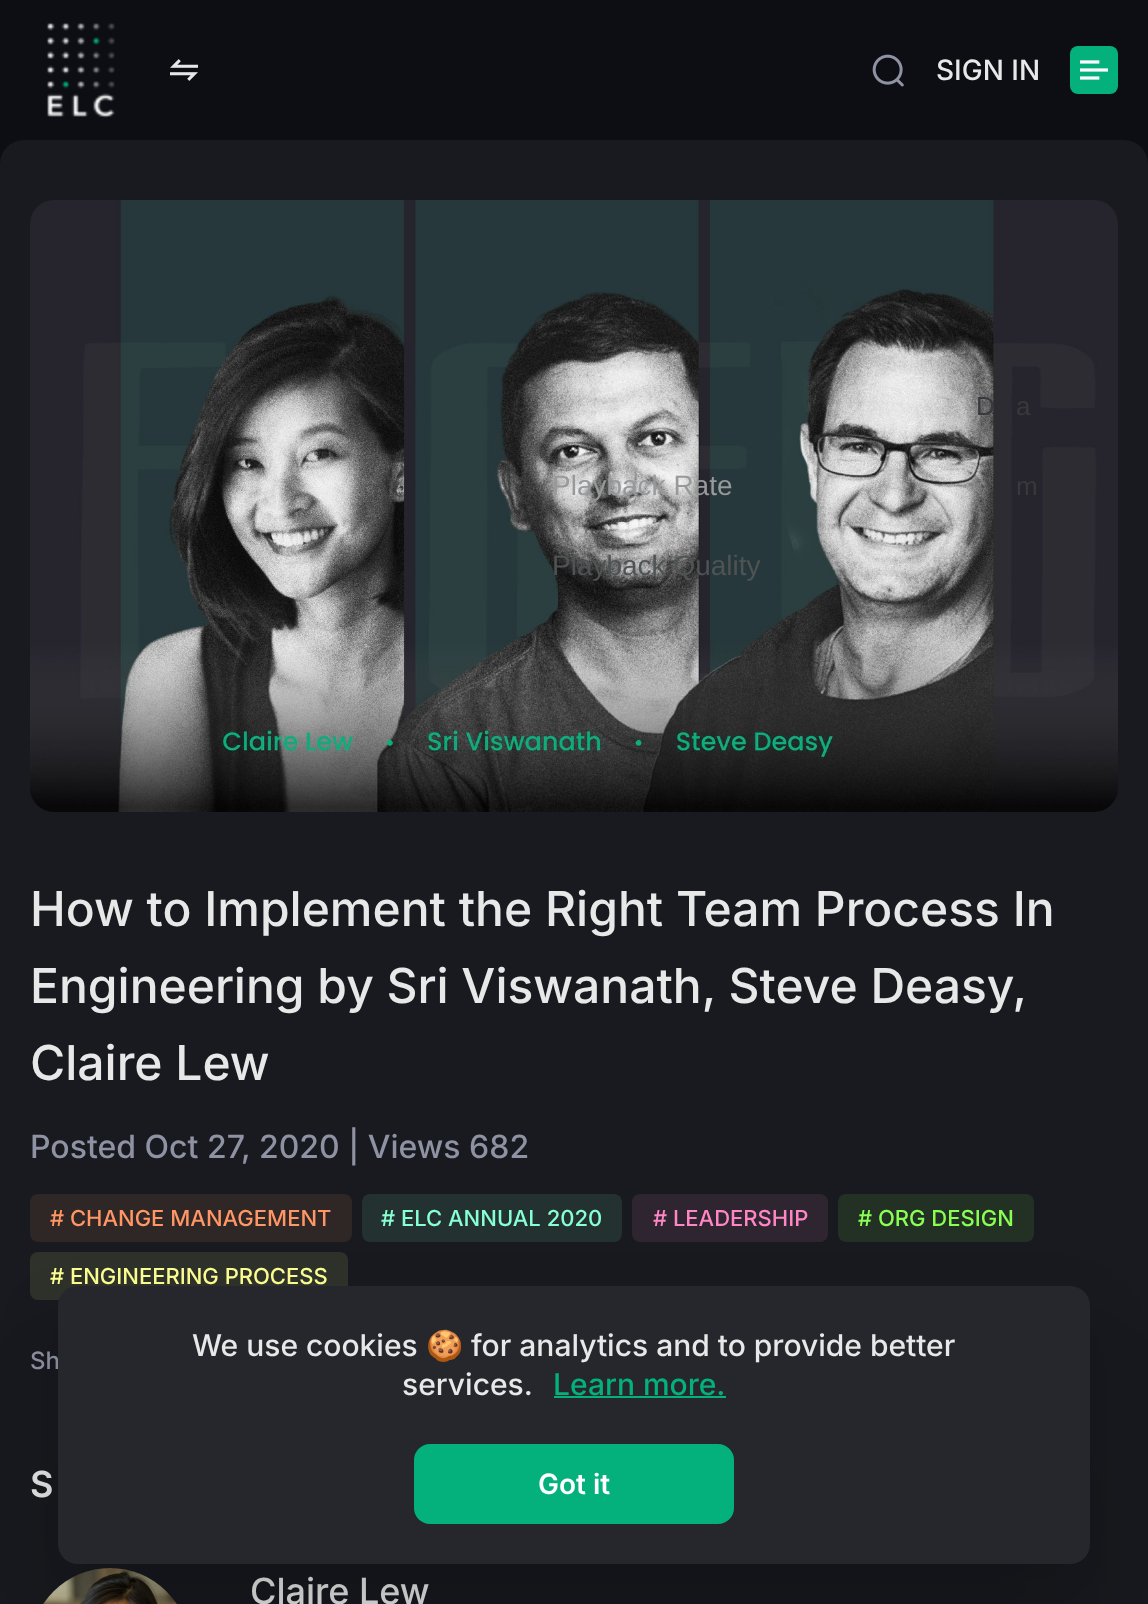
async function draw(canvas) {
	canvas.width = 1148;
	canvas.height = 1604;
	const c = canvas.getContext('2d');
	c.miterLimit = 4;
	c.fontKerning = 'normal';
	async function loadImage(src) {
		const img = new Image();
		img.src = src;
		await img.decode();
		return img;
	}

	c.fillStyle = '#0c0e13';
	c.fillRect(0, 0, 1148, 1604);
	c.drawImage(await loadImage('img1.png'), 46, 22, 69, 96);
	c.drawImage(await loadImage('img2.png'), 170, 59, 28, 22);
	c.drawImage(await loadImage('img3.png'), 872, 54, 32, 33);
	c.font = '500 28px Inter';
	c.fillStyle = '#e8e8e9';
	c.fillText('SIGN IN', 936, 80);
	c.fillStyle = '#04b17d';
	c.beginPath();
	c.roundRect(1070, 46, 48, 48, 8);
	c.fill();
	c.drawImage(await loadImage('img4.png'), 1080, 60, 28, 20);
	c.fillStyle = '#181a1f';
	c.beginPath();
	c.roundRect(0, 140, 1148, 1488, 24);
	c.fill();
	c.drawImage(await loadImage('img5.png'), 30, 200, 1088, 612);
	c.font = '26px Liberation Sans';
	c.fillStyle = '#38383d';
	c.fillText('D', 976, 415);
	c.fillText('a', 1016, 415);
	c.font = '28px Liberation Sans';
	c.fillStyle = '#97999a';
	c.fillText('Playback Rate', 552, 495);
	c.font = '26px Liberation Sans';
	c.fillStyle = '#38383d';
	c.fillText('m', 1016, 495);
	c.font = '28px Liberation Sans';
	c.fillStyle = '#4e5354';
	c.fillText('Playback Quality', 552, 575);
	c.font = '500 48px Inter';
	c.fillStyle = '#e8e8e9';
	for (const [text, x, y] of [
		['How to Implement the Right Team Process In', 30, 926],
		['Engineering by Sri Viswanath, Steve Deasy,', 30, 1003],
		['Claire Lew', 30, 1080],
	]) {
		c.fillText(text, x, y);
	}
	c.font = '500 32px Inter';
	c.fillStyle = '#8f92a3';
	c.fillText('Posted Oct 27, 2020 | Views 682', 30, 1158);
	c.fillStyle = '#2f2626';
	c.beginPath();
	c.roundRect(30, 1194, 322, 48, 8);
	c.fill();
	c.font = '500 22px Inter';
	c.fillStyle = '#ff9665';
	c.fillText('# CHANGE MANAGEMENT', 50, 1226);
	c.fillStyle = '#233131';
	c.beginPath();
	c.roundRect(362, 1194, 260, 48, 8);
	c.fill();
	c.fillStyle = '#86ffd3';
	c.fillText('# ELC ANNUAL 2020', 381, 1226);
	c.fillStyle = '#2f2530';
	c.beginPath();
	c.roundRect(632, 1194, 196, 48, 8);
	c.fill();
	c.fillStyle = '#ff86c5';
	c.fillText('# LEADERSHIP', 653, 1226);
	c.fillStyle = '#233124';
	c.beginPath();
	c.roundRect(838, 1194, 196, 48, 8);
	c.fill();
	c.fillStyle = '#8aff53';
	c.fillText('# ORG DESIGN', 858, 1226);
	c.fillStyle = '#2f312b';
	c.beginPath();
	c.roundRect(30, 1252, 318, 48, 8);
	c.fill();
	c.fillStyle = '#fdff92';
	c.fillText('# ENGINEERING PROCESS', 50, 1284);
	c.font = '500 24px Inter';
	c.fillStyle = '#8f92a3';
	c.fillText('Sh', 30, 1369);
	c.font = '600 36px Inter';
	c.fillStyle = '#e8e8e9';
	c.fillText('S', 30, 1497);
	c.drawImage(await loadImage('img6.png'), 43, 1568, 134, 36);
	c.font = '500 36px Inter';
	c.fillText('Claire Lew', 250, 1604);
	c.fillStyle = '#0000001f';
	c.filter = 'blur(33px)';
	c.beginPath();
	c.roundRect(58, 1316, 1032, 278, 20);
	c.fill();
	c.filter = 'none';
	c.fillStyle = '#0000001a';
	c.filter = 'blur(60px)';
	c.beginPath();
	c.roundRect(58, 1406, 1032, 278, 20);
	c.fill();
	c.filter = 'none';
	c.fillStyle = '#25272c';
	c.beginPath();
	c.roundRect(58, 1286, 1032, 278, 20);
	c.fill();
	c.font = '500 30px Inter';
	c.fillStyle = '#e8e8e9';
	c.fillText('We use cookies', 192, 1356);
	c.font = '30px Noto Color Emoji';
	c.fillText('🍪', 426, 1356);
	c.font = '500 30px Inter';
	c.fillText('for analytics and to provide better', 471, 1356);
	c.fillText('services.', 402, 1395);
	c.fillStyle = '#04b17d';
	c.fillText('Learn more.', 553, 1395);
	c.fillRect(554, 1396, 172, 2);
	c.beginPath();
	c.roundRect(414, 1444, 320, 80, 16);
	c.fill();
	c.font = '600 28px Inter';
	c.fillStyle = '#fff';
	c.fillText('Got it', 538, 1494);
}

draw(document.querySelector('canvas'));
